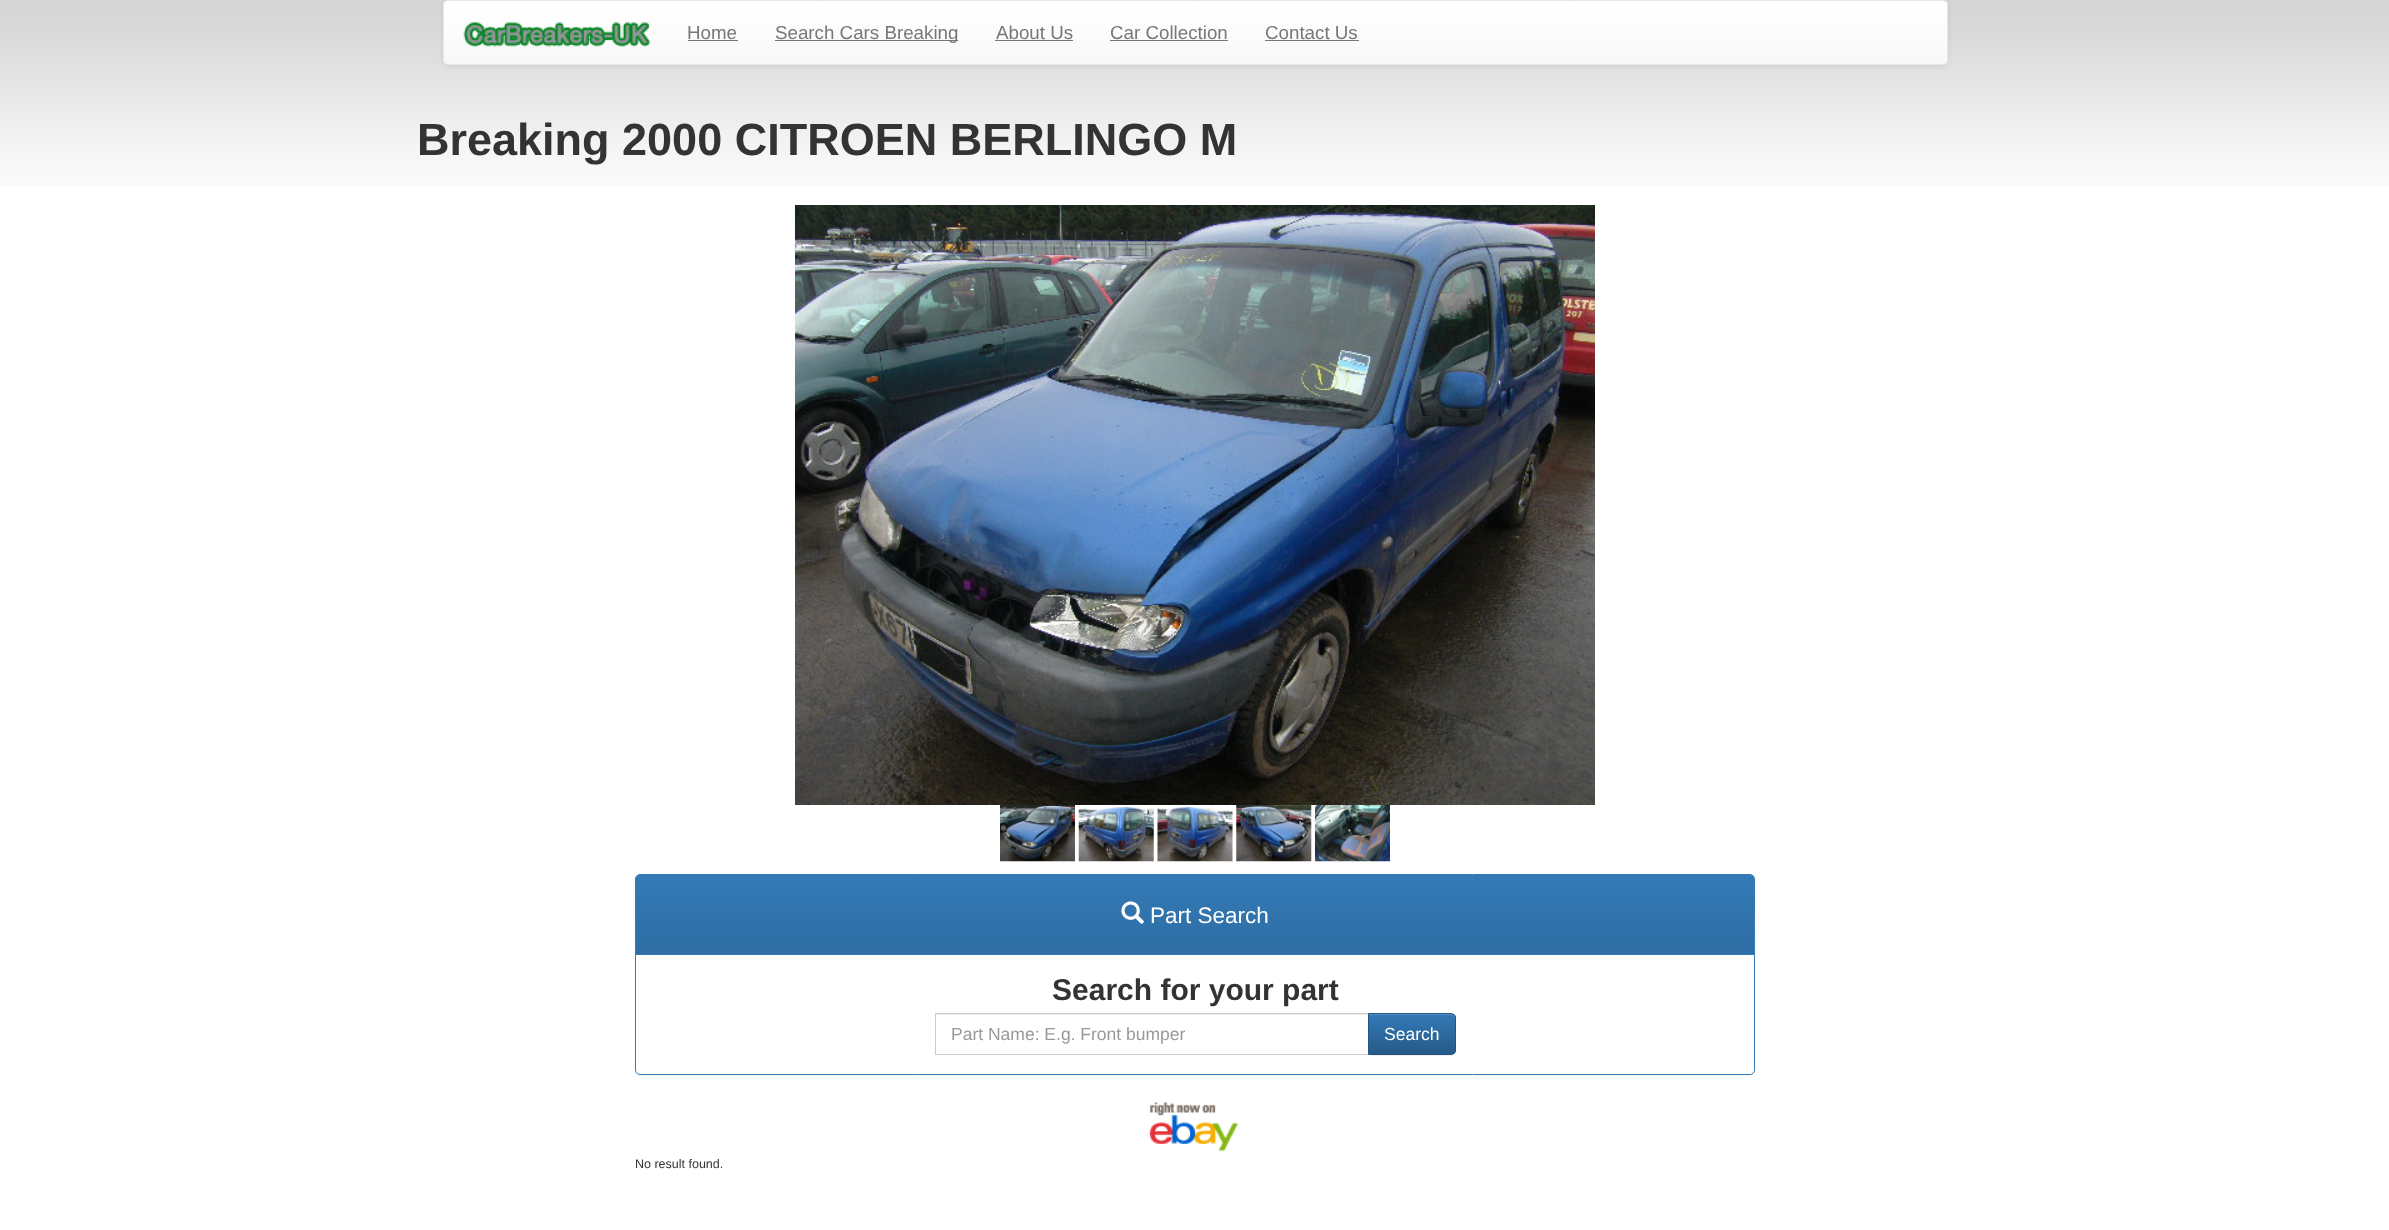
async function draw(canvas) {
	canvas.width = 2389;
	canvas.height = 1230;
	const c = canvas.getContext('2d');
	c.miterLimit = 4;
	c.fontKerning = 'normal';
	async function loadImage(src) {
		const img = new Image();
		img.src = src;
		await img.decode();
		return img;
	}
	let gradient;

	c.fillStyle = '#fff';
	c.fillRect(0, 0, 2389, 1230);
	c.drawImage(await loadImage('img1.png'), 0, 0, 2389, 186);
	c.fillStyle = '#00000012';
	c.filter = 'blur(3px)';
	c.beginPath();
	c.roundRect(443, 1, 1505, 65, 5);
	c.fill();
	c.filter = 'none';
	c.save();
	c.beginPath();
	c.roundRect(443, 0, 1505, 65, 5);
	c.clip();
	gradient = c.createLinearGradient(1195, 1.2, 1195, 64);
	gradient.addColorStop(0, '#fff');
	gradient.addColorStop(1, '#f8f8f8');
	c.fillStyle = gradient;
	c.fillRect(443, 1, 1505, 63);
	c.restore();
	c.beginPath();
	c.roundRect(443.5, 0.5, 1504, 64, 4.5);
	c.strokeStyle = '#e7e7e7';
	c.stroke();
	c.drawImage(await loadImage('img2.png'), 463, 22, 187, 25);
	c.font = '18.75px Liberation Sans';
	c.fillStyle = '#777';
	c.fillText('Home', 687, 39);
	c.fillRect(688, 40, 50, 1);
	c.fillRect(775, 40, 183, 1);
	c.fillText('Search Cars Breaking', 775, 39);
	c.fillText('About Us', 996, 39);
	c.fillRect(995, 40, 78, 1);
	c.fillText('Car Collection', 1110, 39);
	c.fillRect(1110, 40, 118, 1);
	c.fillText('Contact Us', 1265, 39);
	c.fillRect(1265, 40, 94, 1);
	c.font = 'bold 45px Liberation Sans';
	c.fillStyle = '#333';
	c.fillText('Breaking 2000 CITROEN BERLINGO M', 417, 155);
	c.drawImage(await loadImage('img3.png'), 795, 205, 800, 600);
	c.drawImage(await loadImage('img4.png'), 1000, 805, 75, 57);
	c.drawImage(await loadImage('img5.png'), 1078, 806, 76, 56);
	c.drawImage(await loadImage('img6.png'), 1157, 806, 76, 56);
	c.drawImage(await loadImage('img7.png'), 1236, 805, 76, 57);
	c.drawImage(await loadImage('img8.png'), 1315, 805, 75, 57);
	c.fillStyle = '#0000000d';
	c.filter = 'blur(1px)';
	c.beginPath();
	c.roundRect(635, 875, 1120, 201, 5);
	c.fill();
	c.filter = 'none';
	c.fillStyle = '#fff';
	c.beginPath();
	c.roundRect(635.5, 874.5, 1119, 200, 4.5);
	c.fill();
	c.strokeStyle = '#337ab7';
	c.stroke();
	c.fillStyle = '#337ab7';
	c.beginPath();
	c.roundRect(636, 875, 1118, 80, [4, 4, 0, 0]);
	c.fill();
	gradient = c.createLinearGradient(1195, 875, 1195, 954);
	gradient.addColorStop(0, '#337ab7');
	gradient.addColorStop(1, '#2e6da4');
	c.fillStyle = gradient;
	c.beginPath();
	c.roundRect(636, 875, 1118, 79, [4, 4, 0, 0]);
	c.fill();
	c.drawImage(await loadImage('img9.png'), 1121, 901, 23, 23);
	c.font = '22.5px Liberation Sans';
	c.fillStyle = '#fff';
	c.fillText('Part Search', 1150, 923);
	c.font = 'bold 30px Liberation Sans';
	c.fillStyle = '#333';
	c.fillText('Search for your part', 1052, 1000);
	c.fillStyle = '#ececec';
	c.fillRect(936, 1014, 432, 1);
	c.strokeStyle = '#ccc';
	c.strokeRect(935.5, 1013.5, 433, 41);
	c.font = '17.5px Liberation Sans';
	c.fillStyle = '#999';
	c.fillText('Part Name: E.g. Front bumper', 951, 1040);
	c.fillStyle = '#00000012';
	c.filter = 'blur(0.5px)';
	c.beginPath();
	c.roundRect(1368, 1014, 88, 42, 5);
	c.fill();
	c.filter = 'none';
	c.save();
	c.beginPath();
	c.roundRect(1368, 1013, 88, 42, [0, 5, 5, 0]);
	c.clip();
	gradient = c.createLinearGradient(1412, 1014, 1412, 1054);
	gradient.addColorStop(0, '#337ab7');
	gradient.addColorStop(1, '#265a88');
	c.fillStyle = gradient;
	c.fillRect(1369, 1014, 87, 40);
	c.restore();
	c.fillStyle = '#528ec1';
	c.beginPath();
	c.moveTo(1369, 1015);
	c.lineTo(1451, 1015);
	c.bezierCurveTo(1453, 1015, 1455, 1017, 1455, 1019);
	c.lineTo(1455, 1018);
	c.bezierCurveTo(1455, 1016, 1453, 1014, 1451, 1014);
	c.lineTo(1369, 1014);
	c.closePath();
	c.fill();
	c.beginPath();
	c.roundRect(1368.5, 1013.5, 87, 41, [0, 4.5, 4.5, 0]);
	c.strokeStyle = '#245580';
	c.stroke();
	c.fillStyle = '#fff';
	c.fillText('Search', 1384, 1040);
	c.drawImage(await loadImage('img10.png'), 1149, 1102, 89, 50);
	c.font = '12.5px Liberation Sans';
	c.fillStyle = '#333';
	c.fillText('No result found.', 635, 1168);
}

draw(document.querySelector('canvas'));
